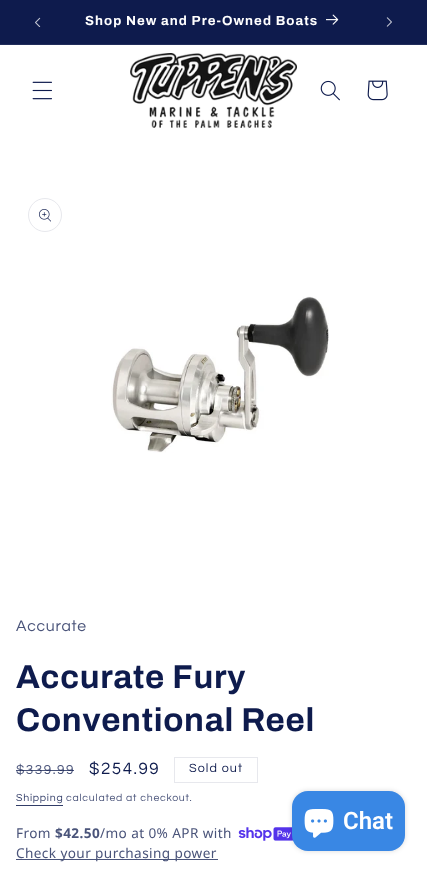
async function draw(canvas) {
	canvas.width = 427;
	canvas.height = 872;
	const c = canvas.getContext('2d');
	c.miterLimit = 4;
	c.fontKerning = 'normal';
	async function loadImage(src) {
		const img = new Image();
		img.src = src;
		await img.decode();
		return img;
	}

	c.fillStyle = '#fff';
	c.fillRect(0, 0, 427, 872);
	c.fillStyle = '#0e1b4d';
	c.fillRect(0, 0, 427, 44);
	c.fillStyle = '#212d5b';
	c.fillRect(0, 44, 427, 1);
	c.drawImage(await loadImage('img1.png'), 35, 17, 6, 10);
	c.letterSpacing = '1.05px';
	c.font = 'bold 13.25px Archivo';
	c.fillStyle = '#fff';
	c.fillText('Shop New and Pre-Owned Boats', 85, 25);
	c.drawImage(await loadImage('img2.png'), 326, 14, 13, 11);
	c.drawImage(await loadImage('img3.png'), 386, 17, 6, 10);
	c.drawImage(await loadImage('img4.png'), 32, 81, 20, 19);
	c.drawImage(await loadImage('img5.png'), 130, 53, 167, 75);
	c.drawImage(await loadImage('img6.png'), 320, 80, 20, 21);
	c.drawImage(await loadImage('img7.png'), 367, 80, 21, 21);
	c.beginPath();
	c.arc(45, 215, 16.5, 0, 2 * Math.PI);
	c.strokeStyle = '#e7e8ed';
	c.stroke();
	c.drawImage(await loadImage('img8.png'), 39, 209, 12, 13);
	c.drawImage(await loadImage('img9.png'), 111, 296, 218, 157);
	c.letterSpacing = '0.75px';
	c.font = '15.75px Questrial';
	c.fillStyle = '#4a547a';
	c.fillText('Accurate', 16, 631);
	c.letterSpacing = '0.7px';
	c.font = 'bold 33px Archivo';
	c.fillStyle = '#0e1b4d';
	c.fillText('Accurate Fury', 16, 688);
	c.fillText('Conventional Reel', 16, 731);
	c.letterSpacing = '1.5px';
	c.font = '13.6px Questrial';
	c.fillStyle = '#4a547a';
	c.fillText('$339.99', 16, 774);
	c.fillStyle = '#0e1b4dbf';
	c.fillRect(16, 770, 58, 1);
	c.font = '17px Questrial';
	c.fillStyle = '#0e1b4d';
	c.fillText('$254.99', 89, 774);
	c.strokeRect(174.5, 757.5, 83, 25);
	c.letterSpacing = '1.05px';
	c.font = '12.5px Questrial';
	c.fillText('Sold out', 189, 772);
	c.letterSpacing = '0.75px';
	c.font = '10.5px Questrial';
	c.fillStyle = '#323d68';
	c.fillText('Shipping', 16, 801);
	c.fillRect(16, 805, 47, 1);
	c.fillStyle = '#4a547a';
	c.fillText('calculated at checkout.', 66, 801);
	c.letterSpacing = '0.4px';
	c.font = '13.6px Noto Sans';
	c.fillText('From', 16, 838);
	c.font = 'bold 13.6px Noto Sans';
	c.fillText('$42.50', 55, 838);
	c.font = '13.6px Noto Sans';
	c.fillText('/mo at 0% APR with', 100, 838);
	c.drawImage(await loadImage('img10.png'), 238, 827, 56, 14);
	c.fillRect(16, 859, 202, 1);
	c.fillText('Check your purchasing power', 16, 858);
	c.fillStyle = '#00000026';
	c.filter = 'blur(2.5px)';
	c.beginPath();
	c.roundRect(292, 791, 113, 60, 16);
	c.fill();
	c.filter = 'none';
	c.fillStyle = '#3987e4';
	c.beginPath();
	c.roundRect(292, 791, 113, 60, 16);
	c.fill();
	c.drawImage(await loadImage('img11.png'), 304, 809, 30, 29);
	c.letterSpacing = '0px';
	c.font = '600 24px Roboto';
	c.fillStyle = '#fff';
	c.fillText('Chat', 343, 829);
}

draw(document.querySelector('canvas'));
